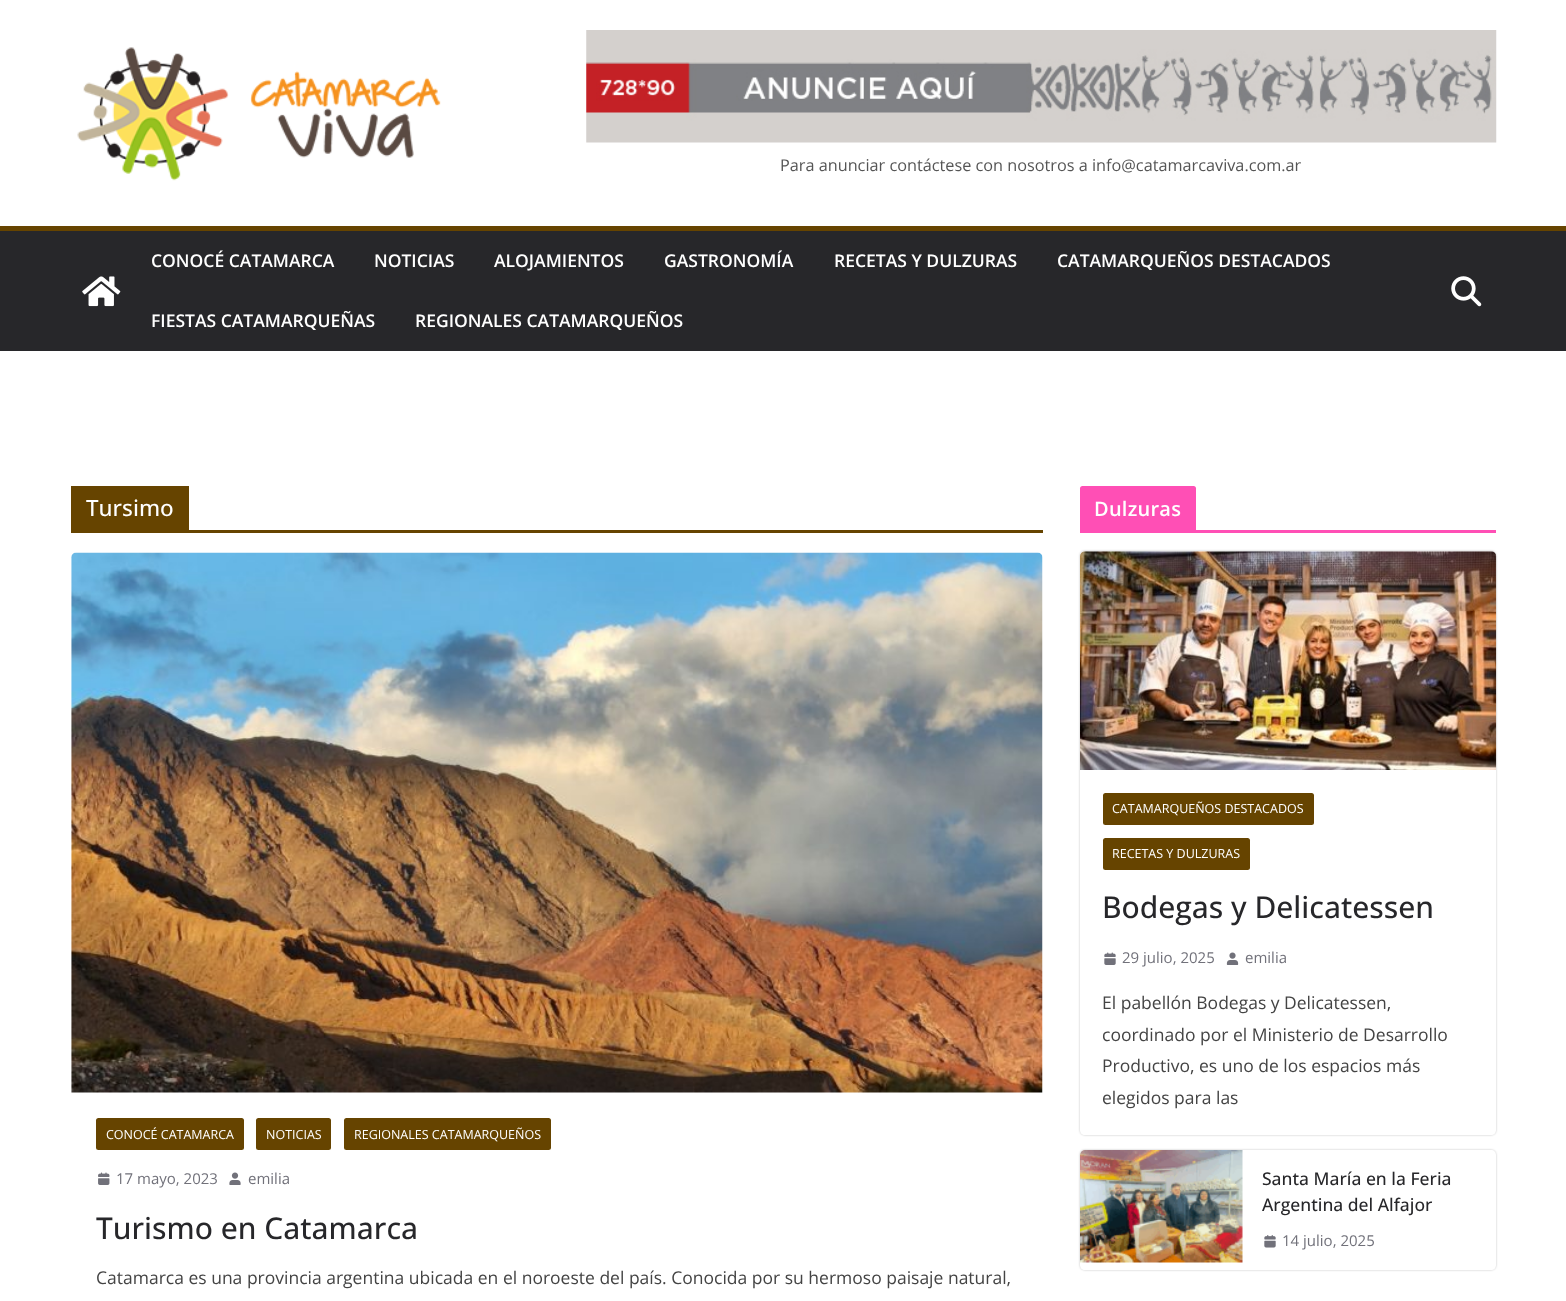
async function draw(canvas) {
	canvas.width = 1566;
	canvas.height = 1301;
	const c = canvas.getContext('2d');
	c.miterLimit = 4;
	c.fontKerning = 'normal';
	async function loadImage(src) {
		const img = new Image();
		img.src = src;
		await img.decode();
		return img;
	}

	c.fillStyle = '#fff';
	c.fillRect(0, 0, 1566, 1301);
	c.drawImage(await loadImage('img1.png'), 77, 47, 364, 134);
	c.drawImage(await loadImage('img2.png'), 586, 30, 911, 113);
	c.font = '16.25px Open Sans';
	c.fillStyle = '#555';
	c.fillText('Para anunciar contáctese con nosotros a info@catamarcaviva.com.ar', 780, 171);
	c.fillStyle = '#27272a';
	c.fillRect(0, 231, 1566, 120);
	c.fillStyle = '#640';
	c.fillRect(0, 226, 1566, 5);
	c.drawImage(await loadImage('img3.png'), 82, 276, 39, 31);
	c.font = '600 17.5px Open Sans';
	c.fillStyle = '#fff';
	for (const [text, x, y] of [
		['CONOCÉ CATAMARCA', 151, 267],
		['NOTICIAS', 374, 267],
		['ALOJAMIENTOS', 494, 267],
		['GASTRONOMÍA', 664, 267],
		['RECETAS Y DULZURAS', 834, 267],
		['CATAMARQUEÑOS DESTACADOS', 1057, 267],
		['FIESTAS CATAMARQUEÑAS', 151, 327],
		['REGIONALES CATAMARQUEÑOS', 415, 327],
	]) {
		c.fillText(text, x, y);
	}
	c.drawImage(await loadImage('img4.png'), 1451, 276, 31, 31);
	c.fillStyle = '#640';
	c.fillRect(71, 530, 972, 3);
	c.fillRect(71, 486, 118, 44);
	c.font = '500 22.5px Open Sans';
	c.fillStyle = '#fff';
	c.fillText('Tursimo', 86, 516);
	c.drawImage(await loadImage('img5.png'), 71, 552, 972, 541);
	c.fillStyle = '#640';
	c.beginPath();
	c.roundRect(96, 1118, 148, 32, 2.5);
	c.fill();
	c.font = '12.5px Open Sans';
	c.fillStyle = '#fff';
	c.fillText('CONOCÉ CATAMARCA', 106, 1139);
	c.fillStyle = '#640';
	c.beginPath();
	c.roundRect(256, 1118, 75, 32, 2.5);
	c.fill();
	c.fillStyle = '#fff';
	c.fillText('NOTICIAS', 266, 1139);
	c.fillStyle = '#640';
	c.beginPath();
	c.roundRect(344, 1118, 207, 32, 2.5);
	c.fill();
	c.fillStyle = '#fff';
	c.fillText('REGIONALES CATAMARQUEÑOS', 354, 1139);
	c.drawImage(await loadImage('img6.png'), 98, 1172, 12, 13);
	c.font = '15px Open Sans';
	c.fillStyle = '#71717a';
	c.fillText('17 mayo, 2023', 116, 1184);
	c.drawImage(await loadImage('img7.png'), 229, 1172, 12, 13);
	c.fillText('emilia', 248, 1184);
	c.font = '500 30px Open Sans';
	c.fillStyle = '#27272a';
	c.fillText('Turismo en Catamarca', 96, 1239);
	c.font = '17.5px Open Sans';
	c.fillStyle = '#444';
	c.fillText('Catamarca es una provincia argentina ubicada en el noroeste del país. Conocida por su hermoso paisaje natural,', 96, 1284);
	c.fillStyle = '#ff4fb5';
	c.fillRect(1080, 530, 416, 3);
	c.beginPath();
	c.roundRect(1080, 486, 116, 44, [2.5, 2.5, 0, 0]);
	c.fill();
	c.letterSpacing = '0.25px';
	c.font = '600 20px Open Sans';
	c.fillStyle = '#fff';
	c.fillText('Dulzuras', 1094, 516);
	c.save();
	c.beginPath();
	c.moveTo(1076, 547);
	c.lineTo(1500, 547);
	c.lineTo(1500, 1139);
	c.lineTo(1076, 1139);
	c.closePath();
	c.moveTo(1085, 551);
	c.lineTo(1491, 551);
	c.bezierCurveTo(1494, 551, 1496, 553, 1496, 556);
	c.lineTo(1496, 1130);
	c.bezierCurveTo(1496, 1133, 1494, 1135, 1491, 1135);
	c.lineTo(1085, 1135);
	c.bezierCurveTo(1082, 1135, 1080, 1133, 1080, 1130);
	c.lineTo(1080, 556);
	c.bezierCurveTo(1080, 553, 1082, 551, 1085, 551);
	c.closePath();
	c.clip('evenodd');
	c.fillStyle = '#0000003d';
	c.filter = 'blur(1px)';
	c.beginPath();
	c.roundRect(1080, 551, 416, 584, 5);
	c.fill();
	c.filter = 'none';
	c.restore();
	c.drawImage(await loadImage('img8.png'), 1080, 551, 417, 219);
	c.fillStyle = '#640';
	c.beginPath();
	c.roundRect(1103, 793, 211, 32, 2.5);
	c.fill();
	c.letterSpacing = '0px';
	c.font = '12.5px Open Sans';
	c.fillStyle = '#fff';
	c.fillText('CATAMARQUEÑOS DESTACADOS', 1112, 813);
	c.fillStyle = '#640';
	c.beginPath();
	c.roundRect(1103, 838, 147, 32, 2.5);
	c.fill();
	c.fillStyle = '#fff';
	c.fillText('RECETAS Y DULZURAS', 1112, 858);
	c.font = '500 30px Open Sans';
	c.fillStyle = '#27272a';
	c.fillText('Bodegas y Delicatessen', 1102, 918);
	c.drawImage(await loadImage('img9.png'), 1104, 952, 12, 13);
	c.font = '15px Open Sans';
	c.fillStyle = '#71717a';
	c.fillText('29 julio, 2025', 1122, 963);
	c.drawImage(await loadImage('img10.png'), 1226, 952, 13, 13);
	c.fillText('emilia', 1245, 963);
	c.font = '17.5px Open Sans';
	c.fillStyle = '#444';
	for (const [text, x, y] of [
		['El pabellón Bodegas y Delicatessen,', 1102, 1009],
		['coordinado por el Ministerio de Desarrollo', 1102, 1041],
		['Productivo, es uno de los espacios más', 1102, 1072],
		['elegidos para las', 1102, 1104],
	]) {
		c.fillText(text, x, y);
	}
	c.save();
	c.beginPath();
	c.moveTo(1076, 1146);
	c.lineTo(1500, 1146);
	c.lineTo(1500, 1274);
	c.lineTo(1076, 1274);
	c.closePath();
	c.moveTo(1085, 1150);
	c.lineTo(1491, 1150);
	c.bezierCurveTo(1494, 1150, 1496, 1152, 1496, 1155);
	c.lineTo(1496, 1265);
	c.bezierCurveTo(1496, 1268, 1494, 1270, 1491, 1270);
	c.lineTo(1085, 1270);
	c.bezierCurveTo(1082, 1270, 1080, 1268, 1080, 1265);
	c.lineTo(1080, 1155);
	c.bezierCurveTo(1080, 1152, 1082, 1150, 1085, 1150);
	c.closePath();
	c.clip('evenodd');
	c.fillStyle = '#0000003d';
	c.filter = 'blur(1px)';
	c.beginPath();
	c.roundRect(1080, 1150, 416, 120, 5);
	c.fill();
	c.filter = 'none';
	c.restore();
	c.drawImage(await loadImage('img11.png'), 1080, 1150, 163, 113);
	c.font = '500 17.5px Open Sans';
	c.fillStyle = '#27272a';
	c.fillText('Santa María en la Feria', 1262, 1185);
	c.fillText('Argentina del Alfajor', 1262, 1211);
	c.drawImage(await loadImage('img12.png'), 1264, 1235, 12, 13);
	c.font = '15px Open Sans';
	c.fillStyle = '#71717a';
	c.fillText('14 julio, 2025', 1282, 1246);
}

draw(document.querySelector('canvas'));
